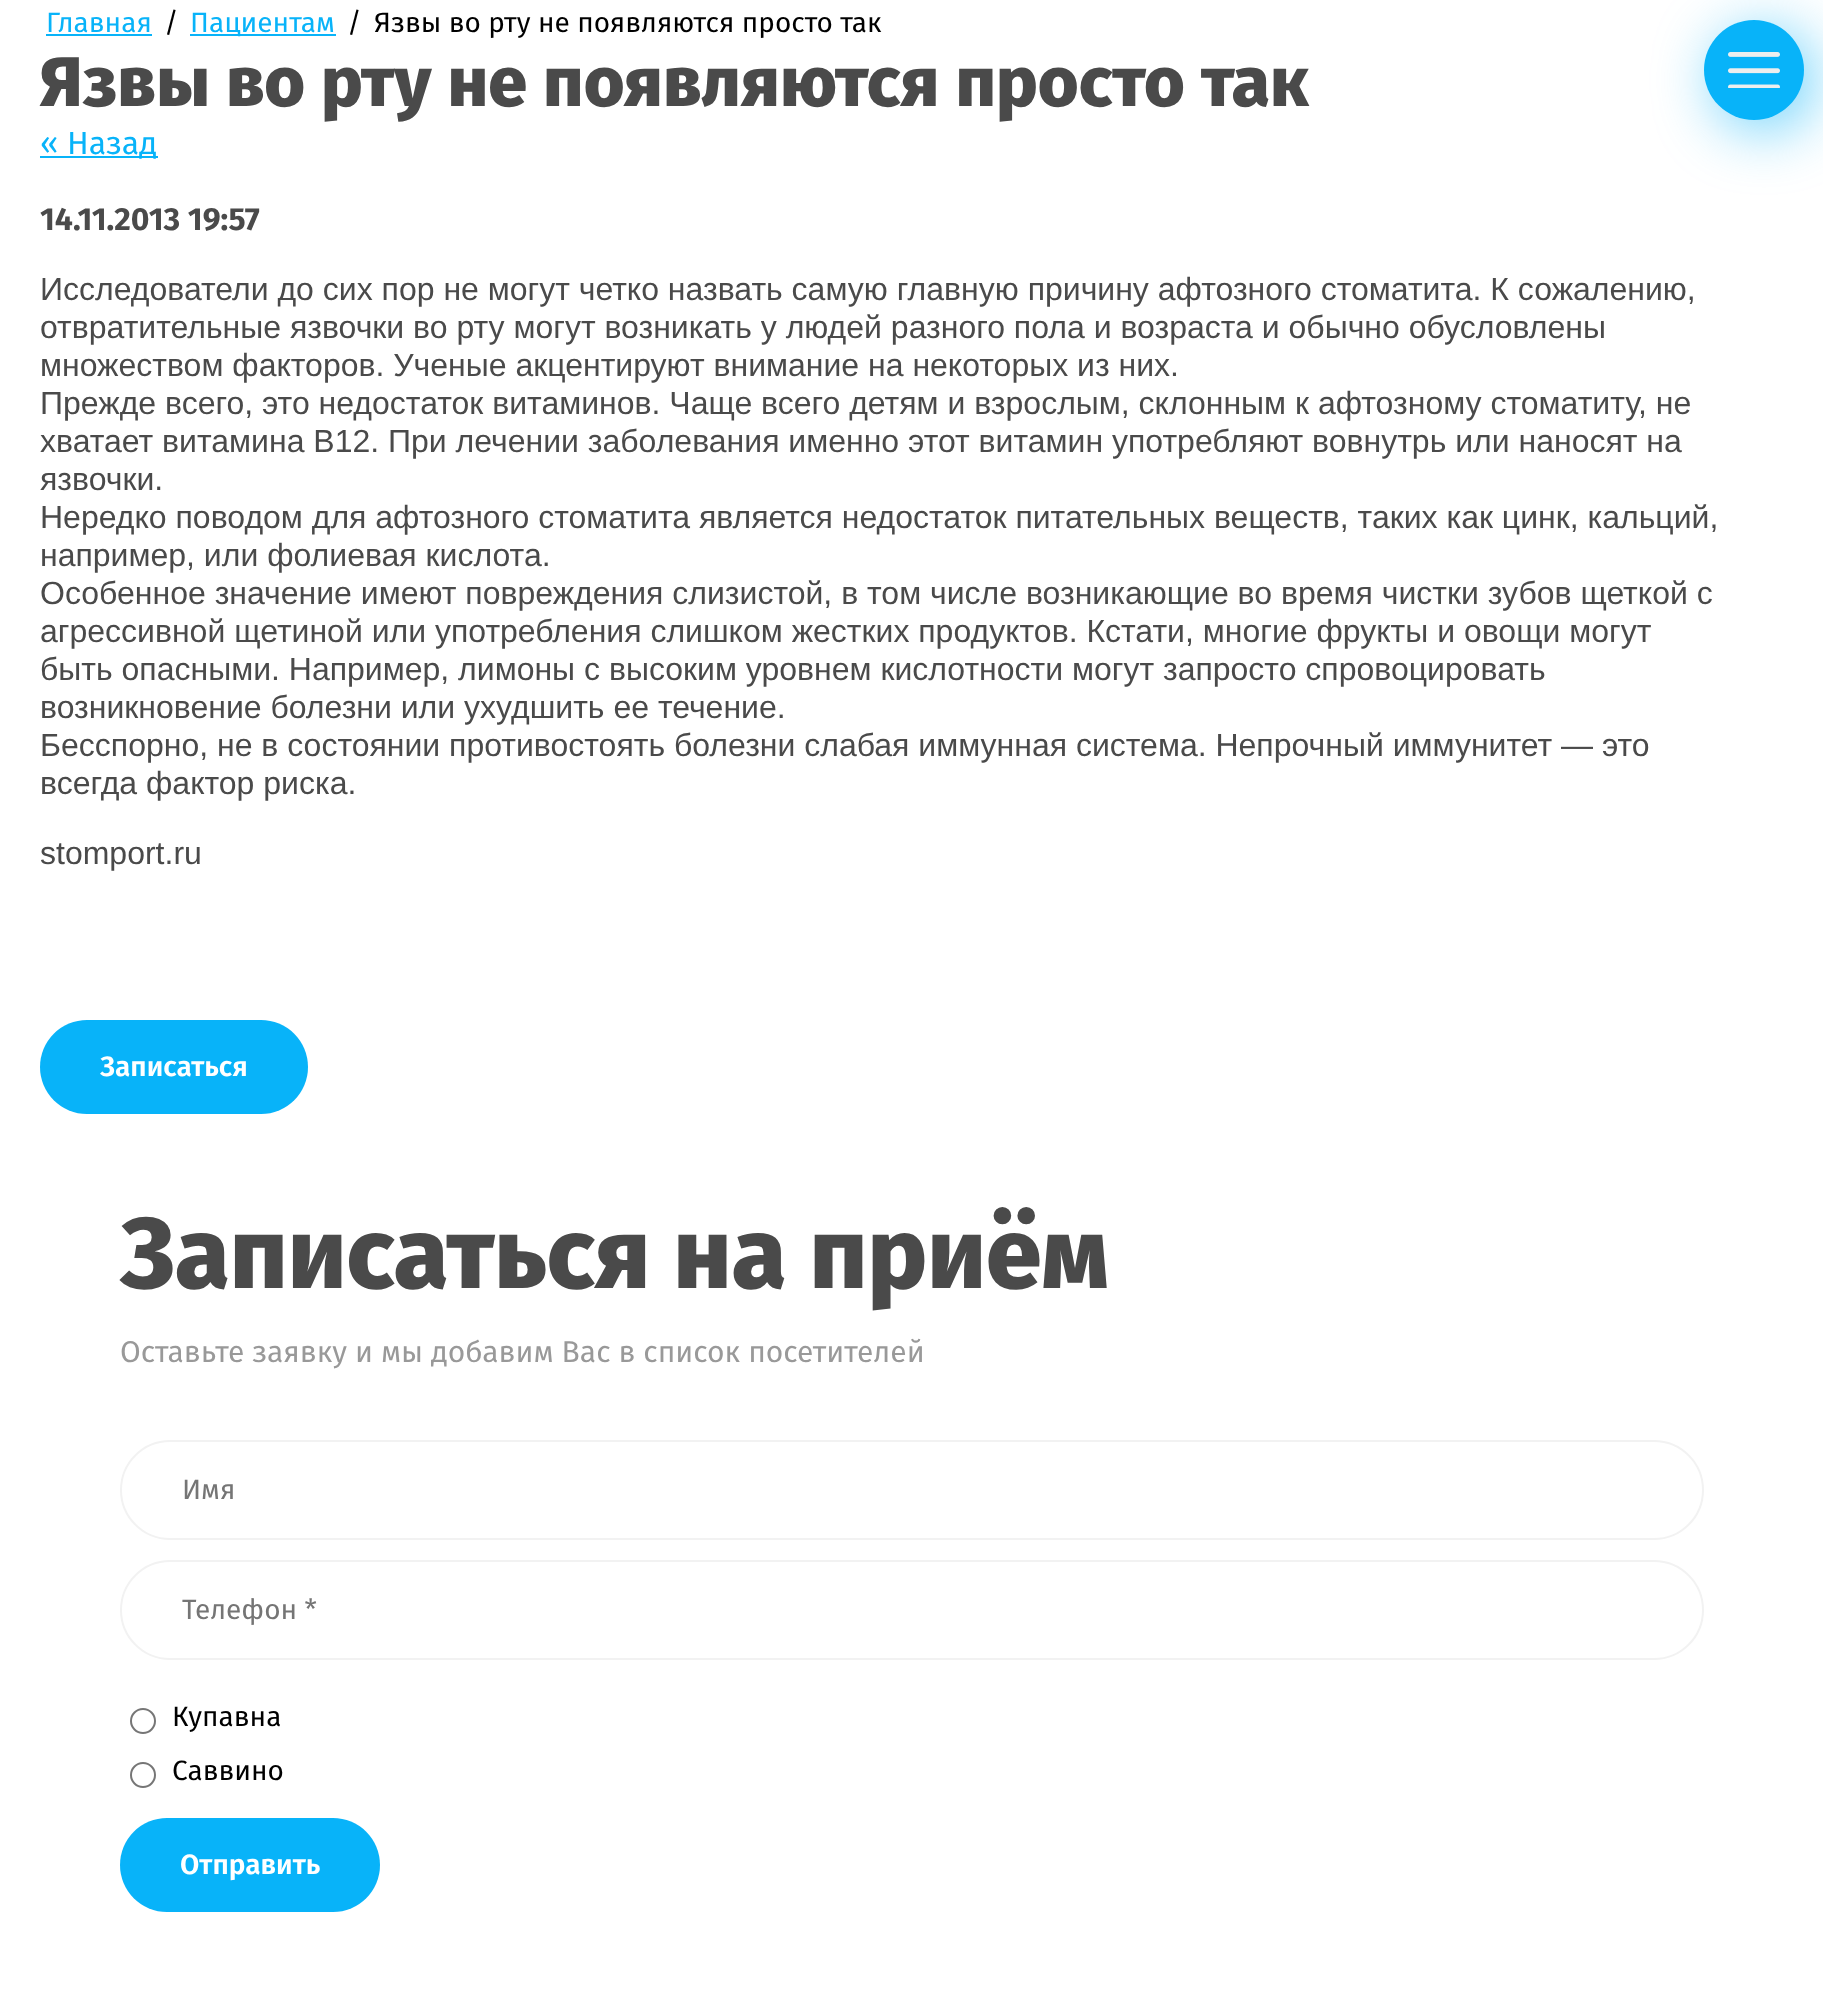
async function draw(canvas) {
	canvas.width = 1823;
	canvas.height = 2015;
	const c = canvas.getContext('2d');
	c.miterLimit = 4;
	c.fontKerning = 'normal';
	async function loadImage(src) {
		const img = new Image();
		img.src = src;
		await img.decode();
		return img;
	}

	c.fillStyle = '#fff';
	c.fillRect(0, 0, 1823, 2015);
	c.font = '28px Fira Sans';
	c.fillStyle = '#08b3f9';
	c.fillText('Главная', 46, 32);
	c.fillRect(46, 34, 106, 2);
	c.fillStyle = '#000';
	c.fillText('/', 164, 32);
	c.fillStyle = '#08b3f9';
	c.fillRect(190, 34, 146, 2);
	c.fillText('Пациентам', 190, 32);
	c.fillStyle = '#000';
	c.fillText('/', 347, 32);
	c.fillText('Язвы во рту не появляются просто так', 374, 32);
	c.font = '800 70px Fira Sans';
	c.fillStyle = '#4a4a4a';
	c.fillText('Язвы во рту не появляются просто так', 40, 106);
	c.fillStyle = '#08b3f9';
	c.fillRect(40, 156, 118, 2);
	c.font = '32px Fira Sans';
	c.fillText('« Назад', 40, 154);
	c.font = 'bold 32px Fira Sans';
	c.fillStyle = '#4a4a4a';
	c.fillText('14.11.2013 19:57', 40, 230);
	c.font = '32px Liberation Sans';
	for (const [text, x, y] of [
		['Исследователи до сих пор не могут четко назвать самую главную причину афтозного стоматита. К сожалению,', 40, 300],
		['отвратительные язвочки во рту могут возникать у людей разного пола и возраста и обычно обусловлены', 40, 338],
		['множеством факторов. Ученые акцентируют внимание на некоторых из них.', 40, 376],
		['Прежде всего, это недостаток витаминов. Чаще всего детям и взрослым, склонным к афтозному стоматиту, не', 40, 414],
		['хватает витамина В12. При лечении заболевания именно этот витамин употребляют вовнутрь или наносят на', 40, 452],
		['язвочки.', 40, 490],
		['Нередко поводом для афтозного стоматита является недостаток питательных веществ, таких как цинк, кальций,', 40, 528],
		['например, или фолиевая кислота.', 40, 566],
		['Особенное значение имеют повреждения слизистой, в том числе возникающие во время чистки зубов щеткой с', 40, 604],
		['агрессивной щетиной или употребления слишком жестких продуктов. Кстати, многие фрукты и овощи могут', 40, 642],
		['быть опасными. Например, лимоны с высоким уровнем кислотности могут запросто спровоцировать', 40, 680],
		['возникновение болезни или ухудшить ее течение.', 40, 718],
		['Бесспорно, не в состоянии противостоять болезни слабая иммунная система. Непрочный иммунитет — это', 40, 756],
		['всегда фактор риска.', 40, 794],
		['stomport.ru', 40, 864],
	]) {
		c.fillText(text, x, y);
	}
	c.fillStyle = '#08b3f9';
	c.beginPath();
	c.roundRect(40, 1020, 268, 94, 47);
	c.fill();
	c.font = '600 28px Fira Sans';
	c.fillStyle = '#fff';
	c.fillText('Записаться', 100, 1076);
	c.fillStyle = '#08b3f999';
	c.filter = 'blur(30px)';
	c.beginPath();
	c.roundRect(1714, 30, 100, 100, 50);
	c.fill();
	c.filter = 'none';
	c.fillStyle = '#08b3f9';
	c.beginPath();
	c.arc(1754, 70, 50, 0, 2 * Math.PI);
	c.fill();
	c.drawImage(await loadImage('img1.png'), 1728, 52, 52, 36);
	c.font = '800 100px Fira Sans';
	c.fillStyle = '#4a4a4a';
	c.fillText('Записаться на приём', 120, 1288);
	c.font = '30px Fira Sans';
	c.fillStyle = '#999';
	c.fillText('Оставьте заявку и мы добавим Вас в список посетителей', 120, 1362);
	c.beginPath();
	c.roundRect(121, 1441, 1582, 98, 49);
	c.strokeStyle = '#f2f2f2';
	c.lineWidth = 2;
	c.stroke();
	c.font = '28px Fira Sans';
	c.fillStyle = '#757575';
	c.fillText('Имя', 182, 1499);
	c.beginPath();
	c.roundRect(121, 1561, 1582, 98, 49);
	c.stroke();
	c.fillText('Телефон *', 182, 1619);
	c.beginPath();
	c.arc(143, 1721, 12, 0, 2 * Math.PI);
	c.strokeStyle = '#767676';
	c.stroke();
	c.fillStyle = '#000';
	c.fillText('Купавна', 172, 1726);
	c.beginPath();
	c.arc(143, 1775, 12, 0, 2 * Math.PI);
	c.stroke();
	c.fillText('Саввино', 172, 1780);
	c.fillStyle = '#08b3f9';
	c.beginPath();
	c.roundRect(120, 1818, 260, 94, 47);
	c.fill();
	c.font = '600 28px Fira Sans';
	c.fillStyle = '#fff';
	c.fillText('Отправить', 180, 1874);
}

draw(document.querySelector('canvas'));
